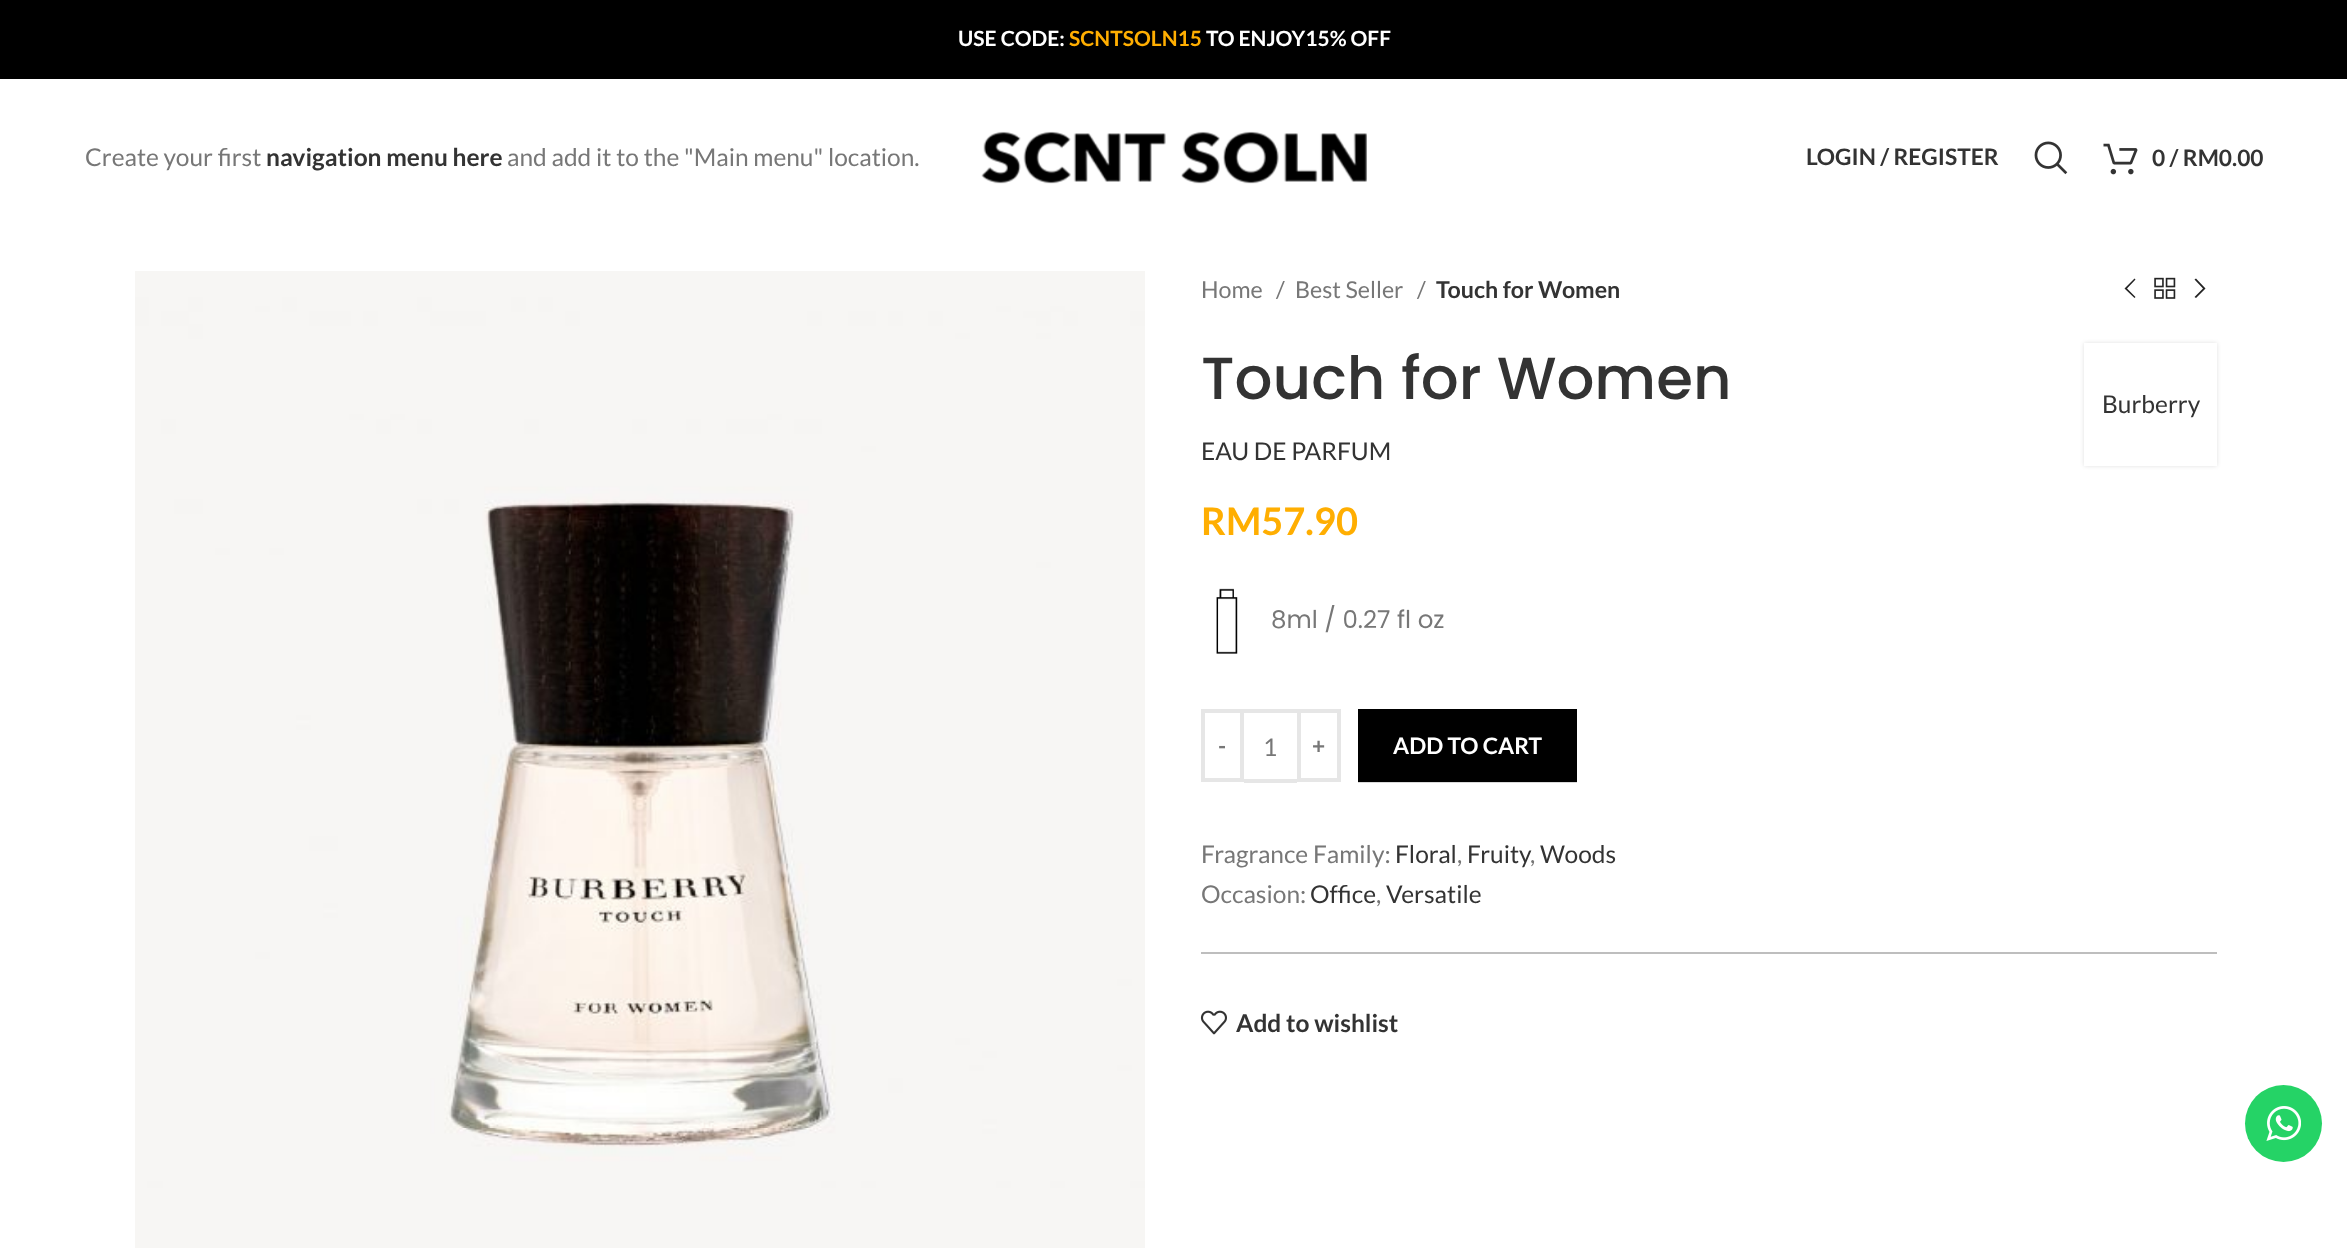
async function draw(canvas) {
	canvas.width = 2347;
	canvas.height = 1248;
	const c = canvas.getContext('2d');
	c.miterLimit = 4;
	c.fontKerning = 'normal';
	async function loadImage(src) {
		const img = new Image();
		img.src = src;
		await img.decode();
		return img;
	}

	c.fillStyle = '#fff';
	c.fillRect(0, 0, 2347, 1248);
	c.fillStyle = '#d9d9d9';
	c.fillRect(1358, 782, 219, 1);
	c.fillStyle = '#000';
	c.fillRect(0, 0, 2347, 79);
	c.font = 'bold 21px Lato';
	c.fillStyle = '#fff';
	c.fillText('USE CODE:', 958, 46);
	c.fillStyle = '#ffae01';
	c.fillText('SCNTSOLN15', 1069, 46);
	c.fillStyle = '#fff';
	c.fillText('TO ENJOY15% OFF', 1206, 46);
	c.font = '24.5px Lato';
	c.fillStyle = '#777';
	c.fillText('Create your first', 85, 166);
	c.font = 'bold 24.5px Lato';
	c.fillStyle = '#333';
	c.fillText('navigation menu here', 266, 166);
	c.font = '24.5px Lato';
	c.fillStyle = '#777';
	c.fillText('and add it to the "Main menu" location.', 507, 166);
	c.drawImage(await loadImage('img1.png'), 981, 131, 386, 53);
	c.font = 'bold 22.75px Lato';
	c.fillStyle = '#333';
	c.fillText('LOGIN / REGISTER', 1806, 165);
	c.drawImage(await loadImage('img2.png'), 2034, 141, 34, 34);
	c.drawImage(await loadImage('img3.png'), 2103, 143, 35, 32);
	c.fillText('0 / RM0.00', 2152, 166);
	c.drawImage(await loadImage('img4.png'), 135, 271, 1010, 977);
	c.font = '23.25px Lato';
	c.fillStyle = '#777';
	for (const [text, x, y] of [
		['Home', 1201, 298],
		['/', 1276, 298],
		['Best Seller', 1295, 298],
		['/', 1417, 298],
	]) {
		c.fillText(text, x, y);
	}
	c.font = 'bold 23.25px Lato';
	c.fillStyle = '#333';
	c.fillText('Touch for Women', 1436, 298);
	c.fillStyle = '#242424';
	c.beginPath();
	c.moveTo(2135.5, 279.5);
	c.lineTo(2134.5, 278.5);
	c.lineTo(2124.5, 288.5);
	c.lineTo(2134.5, 298);
	c.lineTo(2135.5, 297);
	c.lineTo(2127, 288.5);
	c.closePath();
	c.fill();
	c.drawImage(await loadImage('img5.png'), 2154, 277, 22, 22);
	c.beginPath();
	c.moveTo(2194.5, 279.5);
	c.lineTo(2203, 288.5);
	c.lineTo(2194.5, 297);
	c.lineTo(2196, 298);
	c.lineTo(2205.5, 288.5);
	c.lineTo(2196, 278.5);
	c.closePath();
	c.fill();
	c.font = '500 59.5px Poppins';
	c.fillStyle = '#333';
	c.fillText('Touch for Women', 1201, 399);
	c.fillStyle = '#0000001f';
	c.filter = 'blur(2px)';
	c.beginPath();
	c.rect(2084, 343, 133, 123);
	c.fill();
	c.filter = 'none';
	c.fillStyle = '#fff';
	c.fillRect(2084, 343, 133, 123);
	c.font = '24.5px Lato';
	c.fillStyle = '#333';
	c.fillText('Burberry', 2102, 413);
	c.fillText('EAU DE PARFUM', 1201, 460);
	c.font = 'bold 38px Lato';
	c.fillStyle = '#ffae01';
	c.fillText('RM57.90', 1201, 535);
	c.drawImage(await loadImage('img6.png'), 1216, 588, 22, 66);
	c.font = '24.5px Poppins';
	c.fillStyle = '#777';
	c.fillText('8ml / 0.27 fl oz', 1271, 628);
	c.strokeStyle = '#e6e6e6';
	c.lineWidth = 4;
	c.strokeRect(1203, 711, 39, 69);
	c.font = 'bold 22.75px Lato';
	c.fillText('-', 1218, 754);
	c.fillStyle = '#e6e6e6';
	c.fillRect(1244, 709, 53, 4);
	c.fillRect(1244, 779, 53, 4);
	c.font = '24.5px Lato';
	c.fillStyle = '#777';
	c.fillText('1', 1263, 756);
	c.strokeRect(1299, 711, 40, 69);
	c.font = 'bold 22.75px Lato';
	c.fillText('+', 1312, 754);
	c.fillStyle = '#000';
	c.fillRect(1358, 709, 219, 73);
	c.fillStyle = '#fff';
	c.fillText('ADD TO CART', 1393, 754);
	c.font = '24.5px Lato';
	c.fillStyle = '#777';
	c.fillText('Fragrance Family:', 1201, 863);
	c.fillStyle = '#333';
	c.fillText('Floral', 1395, 863);
	c.fillStyle = '#777';
	c.fillText(',', 1457, 863);
	c.fillStyle = '#333';
	c.fillText('Fruity', 1467, 863);
	c.fillText('Woods', 1540, 863);
	c.fillStyle = '#777';
	c.fillText(',', 1530, 863);
	c.fillText('Occasion:', 1201, 903);
	c.fillStyle = '#333';
	c.fillText('Office', 1310, 903);
	c.fillStyle = '#777';
	c.fillText(',', 1376, 903);
	c.fillStyle = '#333';
	c.fillText('Versatile', 1386, 903);
	c.fillStyle = '#bebebe';
	c.fillRect(1201, 952, 1016, 2);
	c.drawImage(await loadImage('img7.png'), 1200, 1010, 27, 25);
	c.font = 'bold 24.5px Lato';
	c.fillStyle = '#333';
	c.fillText('Add to wishlist', 1236, 1032);
	c.fillStyle = '#25d366';
	c.beginPath();
	c.arc(2283.5, 1123.5, 38.5, 0, 2 * Math.PI);
	c.fill();
	c.drawImage(await loadImage('img8.png'), 2266, 1106, 35, 35);
}

draw(document.querySelector('canvas'));
